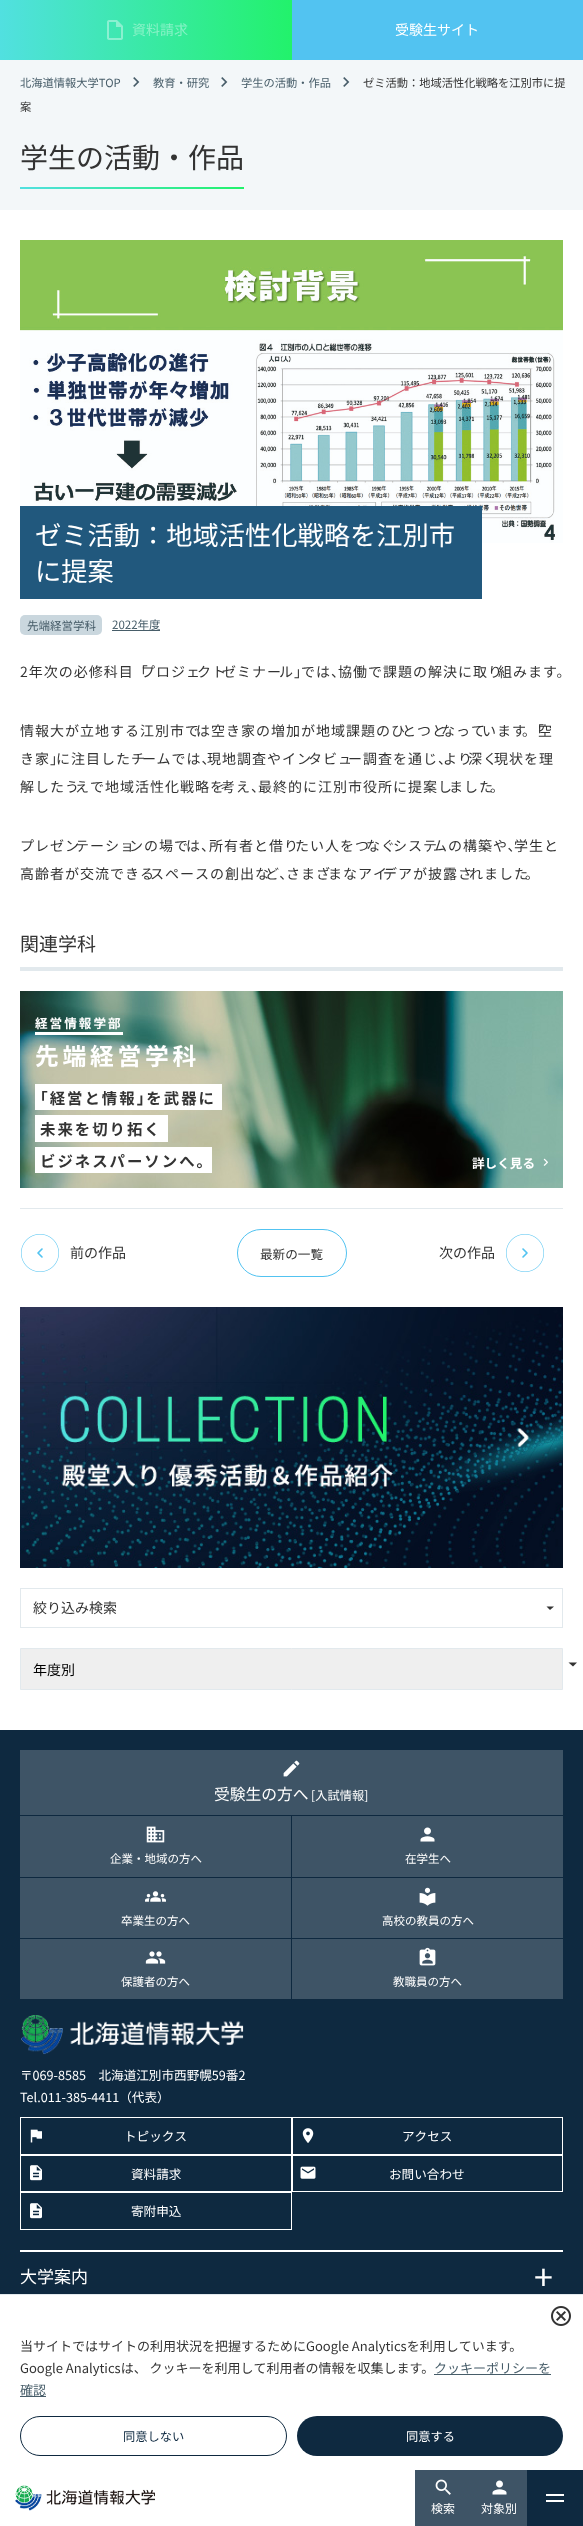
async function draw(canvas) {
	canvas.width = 583;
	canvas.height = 2526;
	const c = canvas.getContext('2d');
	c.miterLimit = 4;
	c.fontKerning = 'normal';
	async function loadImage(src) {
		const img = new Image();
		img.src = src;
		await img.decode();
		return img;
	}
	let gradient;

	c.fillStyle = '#fff';
	c.fillRect(0, 0, 583, 2526);
	gradient = c.createLinearGradient(0, 30, 292, 30);
	gradient.addColorStop(0, '#51e0e0');
	gradient.addColorStop(1, '#22f26b');
	c.fillStyle = gradient;
	c.fillRect(0, 0, 292, 60);
	c.drawImage(await loadImage('img1.png'), 107, 20, 16, 20);
	c.font = '14px Noto Sans JP';
	c.fillStyle = '#87f2c6';
	c.fillText('資料請求', 132, 35);
	c.fillStyle = '#52c3f1';
	c.fillRect(292, 0, 291, 60);
	c.fillStyle = '#fff';
	c.fillText('受験生サイト', 395, 35);
	c.drawImage(await loadImage('img2.png'), 551, 2306, 20, 20);
	c.fillStyle = '#e2e9ed';
	c.fillRect(0, 2294, 583, 1);
	c.font = '13px Noto Sans JP';
	c.fillStyle = '#333';
	c.fillText('当サイトではサイトの利用状況を把握するためにGoogle Analyticsを利用しています。', 20, 2351);
	c.fillText('Google Analyticsは、 クッキーを利用して利用者の情報を収集します。', 20, 2373);
	c.fillStyle = '#475d69';
	c.fillText('クッキーポリシーを', 434, 2373);
	c.fillRect(434, 2374, 117, 1);
	c.fillRect(20, 2396, 26, 1);
	c.fillText('確認', 20, 2395);
	c.beginPath();
	c.roundRect(20.5, 2416.5, 266, 39, 19.5);
	c.strokeStyle = '#0e2940';
	c.stroke();
	c.font = '12.25px Noto Sans JP';
	c.fillStyle = '#0e2940';
	c.fillText('同意しない', 123, 2441);
	c.beginPath();
	c.roundRect(297, 2416, 266, 40, 20);
	c.fill();
	c.fillStyle = '#fff';
	c.fillText('同意する', 406, 2441);
	c.fillStyle = '#f3f7f9';
	c.fillRect(0, 60, 583, 150);
	c.font = '11.25px Noto Sans JP';
	c.fillStyle = '#475d69';
	c.fillText('北海道情報大学TOP', 20, 87);
	c.drawImage(await loadImage('img3.png'), 133, 77, 7, 10);
	c.fillText('教育・研究', 153, 87);
	c.drawImage(await loadImage('img3.png'), 221, 77, 7, 10);
	c.fillText('学生の活動・作品', 241, 87);
	c.drawImage(await loadImage('img3.png'), 343, 77, 7, 10);
	c.fillStyle = '#333';
	c.fillText('ゼミ活動：地域活性化戦略を江別市に提', 363, 87);
	c.fillText('案', 20, 111);
	c.font = '28px Noto Sans JP';
	c.fillText('学生の活動・作品', 20, 168);
	gradient = c.createLinearGradient(20, 188, 244, 188);
	gradient.addColorStop(0, '#51e0e0');
	gradient.addColorStop(1, '#22f26b');
	c.fillStyle = gradient;
	c.fillRect(20, 187, 224, 2);
	c.drawImage(await loadImage('img4.png'), 20, 240, 543, 303);
	c.fillStyle = '#21587d';
	c.fillRect(20, 506, 462, 93);
	c.font = '26.25px Noto Sans JP';
	c.fillStyle = '#fff';
	c.fillText('ゼミ活動：地域活性化戦略を江別市', 35, 545);
	c.fillText('に提案', 35, 581);
	c.fillStyle = '#cad7de';
	c.beginPath();
	c.roundRect(20, 615, 82, 20, 5);
	c.fill();
	c.font = '11.5px Noto Sans JP';
	c.fillStyle = '#475d69';
	c.fillText('先端経営学科', 27, 630);
	c.fillText('2022年度', 112, 629);
	c.fillRect(112, 630, 48, 1);
	c.letterSpacing = '1px';
	c.font = '14px Noto Sans JP';
	c.fillStyle = '#333';
	for (const [text, x, y] of [
		['2年次の必修科目「', 20, 677],
		['プロジェ', 141, 677],
		['クト', 197, 677],
		['ゼミナー', 222, 677],
		['ル」', 279, 677],
		['では、', 301, 677],
		['協働で課題の解決に取り', 338, 677],
		['組みます。', 498, 677],
		['情報大が立地する江別市で', 20, 736],
		['は空き家の増加が地域課題のひ', 196, 736],
		['とつと', 402, 736],
		['なって', 441, 736],
		['います', 482, 736],
		['。', 522, 736],
		['「', 530, 736],
		['空', 538, 736],
		['き家」', 20, 764],
		['に注目したチ', 56, 764],
		['ームでは、', 142, 764],
		['現地調査やイン', 207, 764],
		['タビュ', 308, 764],
		['ー調査を通じ、', 348, 764],
		['より', 443, 764],
		['深く', 468, 764],
		['現状を理', 494, 764],
		['解したう', 20, 792],
		['えで地域活性化戦略を', 75, 792],
		['考え、', 221, 792],
		['最終的に江別市役所に提案し', 258, 792],
		['ました', 449, 792],
		['。', 490, 792],
		['プレゼン', 20, 851],
		['テーショ', 75, 851],
		['ンの場で', 129, 851],
		['は、', 186, 851],
		['所有者と借り', 209, 851],
		['たい人をつ', 295, 851],
		['なぐ', 366, 851],
		['システ', 393, 851],
		['ムの構築や、', 433, 851],
		['学生と', 514, 851],
		['高齢者が交流できる', 20, 879],
		['スペースの創出な', 150, 879],
		['ど、', 265, 879],
		['さまざ', 286, 879],
		['まなアイ', 328, 879],
		['デアが披露さ', 383, 879],
		['れました', 469, 879],
		['。', 525, 879],
	]) {
		c.fillText(text, x, y);
	}
	c.fillStyle = '#e2e9ed';
	c.fillRect(20, 1208, 543, 1);
	c.fillRect(20, 967, 543, 4);
	c.letterSpacing = '0px';
	c.font = '19px Noto Sans JP';
	c.fillStyle = '#333';
	c.fillText('関連学科', 20, 951);
	c.drawImage(await loadImage('img5.png'), 20, 991, 543, 197);
	c.letterSpacing = '2px';
	c.font = 'bold 12.6px Noto Sans JP';
	c.fillStyle = '#fff';
	c.fillText('経営情報学部', 35, 1028);
	c.fillRect(35, 1032, 88, 3);
	c.letterSpacing = '3.75px';
	c.font = 'bold 23.75px Noto Sans JP';
	c.fillText('先端経営学科', 35, 1065);
	c.fillRect(35, 1084, 187, 26);
	c.letterSpacing = '2px';
	c.font = 'bold 15.4px Noto Sans JP';
	c.fillStyle = '#333';
	c.fillText('｢経営と情報｣を武器に', 40, 1104);
	c.fillStyle = '#fff';
	c.fillRect(35, 1115, 133, 27);
	c.fillStyle = '#333';
	c.fillText('未来を切り拓く', 40, 1135);
	c.fillStyle = '#fff';
	c.fillRect(35, 1147, 177, 26);
	c.fillStyle = '#333';
	c.fillText('ビジネスパーソンへ｡', 40, 1167);
	c.letterSpacing = '0px';
	c.font = 'bold 12.6px Noto Sans JP';
	c.fillStyle = '#fff';
	c.fillText('詳しく見る', 472, 1168);
	c.drawImage(await loadImage('img6.png'), 543, 1158, 5, 8);
	c.drawImage(await loadImage('img7.png'), 21, 1234, 38, 38);
	c.font = '14px Noto Sans JP';
	c.fillStyle = '#333';
	c.fillText('前の作品', 70, 1258);
	c.beginPath();
	c.roundRect(237.5, 1229.5, 109, 47, 23.5);
	c.strokeStyle = '#52c3f1';
	c.stroke();
	c.font = '12.6px Noto Sans JP';
	c.fillText('最新の一覧', 260, 1259);
	c.font = '14px Noto Sans JP';
	c.fillText('次の作品', 439, 1258);
	c.drawImage(await loadImage('img8.png'), 506, 1234, 38, 38);
	c.drawImage(await loadImage('img9.png'), 20, 1307, 543, 261);
	c.strokeStyle = '#e2e9ed';
	c.strokeRect(20.5, 1588.5, 542, 39);
	c.fillText('絞り込み検索', 33, 1613);
	c.beginPath();
	c.moveTo(546.5, 1606.5);
	c.lineTo(554, 1606.5);
	c.lineTo(550, 1610);
	c.closePath();
	c.fill();
	c.fillStyle = '#efefef';
	c.beginPath();
	c.rect(20.5, 1648.5, 542, 41);
	c.fill();
	c.stroke();
	c.fillStyle = '#000';
	c.fillText('年度別', 33, 1675);
	c.fillStyle = '#333';
	c.beginPath();
	c.moveTo(568.5, 1662.5);
	c.lineTo(577, 1662.5);
	c.lineTo(573, 1666.5);
	c.closePath();
	c.fill();
	c.fillStyle = '#0e2940';
	c.fillRect(0, 1730, 583, 564);
	c.fillStyle = '#3e5466';
	c.fillRect(20, 1750, 543, 65);
	c.drawImage(await loadImage('img10.png'), 283, 1760, 17, 17);
	c.font = '15.75px Noto Sans JP';
	c.fillStyle = '#fff';
	c.fillText('受験生の方へ', 214, 1800);
	c.font = '12.25px Noto Sans JP';
	c.fillText('[入試情報]', 311, 1800);
	c.fillStyle = '#3e5466';
	c.fillRect(20, 1816, 271, 61);
	c.drawImage(await loadImage('img11.png'), 146, 1826, 19, 17);
	c.font = '11.5px Noto Sans JP';
	c.fillStyle = '#fff';
	c.fillText('企業・地域の方へ', 110, 1863);
	c.fillStyle = '#3e5466';
	c.fillRect(292, 1816, 271, 61);
	c.drawImage(await loadImage('img12.png'), 420, 1827, 15, 15);
	c.fillStyle = '#fff';
	c.fillText('在学生へ', 405, 1863);
	c.fillStyle = '#3e5466';
	c.fillRect(20, 1878, 271, 60);
	c.drawImage(await loadImage('img13.png'), 145, 1891, 21, 11);
	c.fillStyle = '#fff';
	c.fillText('卒業生の方へ', 121, 1925);
	c.fillStyle = '#3e5466';
	c.fillRect(292, 1878, 271, 60);
	c.drawImage(await loadImage('img14.png'), 419, 1887, 17, 19);
	c.fillStyle = '#fff';
	c.fillText('高校の教員の方へ', 382, 1925);
	c.fillStyle = '#3e5466';
	c.fillRect(20, 1939, 271, 60);
	c.drawImage(await loadImage('img15.png'), 145, 1951, 21, 13);
	c.fillStyle = '#fff';
	c.fillText('保護者の方へ', 121, 1986);
	c.fillStyle = '#3e5466';
	c.fillRect(292, 1939, 271, 60);
	c.drawImage(await loadImage('img16.png'), 419, 1947, 17, 19);
	c.fillStyle = '#fff';
	c.fillText('教職員の方へ', 393, 1986);
	c.drawImage(await loadImage('img17.png'), 21, 2015, 223, 40);
	c.font = '12.6px Noto Sans JP';
	c.fillText('〒069-8585　北海道江別市西野幌59番2', 20, 2080);
	c.fillText('Tel.011-385-4411（代表）', 20, 2102);
	c.drawImage(await loadImage('img18.png'), 30, 2129, 12, 14);
	c.strokeStyle = '#fff';
	c.strokeRect(20.5, 2117.5, 271, 37);
	c.fillText('トピックス', 124, 2141);
	c.drawImage(await loadImage('img19.png'), 302, 2128, 12, 15);
	c.strokeRect(292.5, 2117.5, 270, 37);
	c.fillText('アクセス', 402, 2141);
	c.drawImage(await loadImage('img20.png'), 30, 2165, 12, 16);
	c.strokeRect(20.5, 2155.5, 271, 36);
	c.fillText('資料請求', 131, 2179);
	c.drawImage(await loadImage('img21.png'), 300, 2166, 16, 13);
	c.strokeRect(292.5, 2155.5, 270, 36);
	c.fillText('お問い合わせ', 389, 2179);
	c.drawImage(await loadImage('img20.png'), 30, 2203, 12, 16);
	c.strokeRect(20.5, 2192.5, 271, 37);
	c.fillText('寄附申込', 131, 2216);
	c.fillRect(20, 2250, 543, 2);
	c.font = '17px Noto Sans JP';
	c.fillText('大学案内', 20, 2283);
	c.font = '34px Noto Sans JP';
	c.fillText('+', 534, 2290);
	c.drawImage(await loadImage('img22.png'), 15, 2485, 140, 26);
	c.fillStyle = '#3e5466';
	c.fillRect(415, 2470, 112, 56);
	c.drawImage(await loadImage('img23.png'), 435, 2479, 16, 16);
	c.font = '12px Noto Sans JP';
	c.fillStyle = '#fff';
	c.fillText('検索', 431, 2513);
	c.drawImage(await loadImage('img12.png'), 492, 2480, 15, 15);
	c.fillText('対象別', 481, 2513);
	for (const [x, y, w, h, color] of [
		[527, 2470, 56, 56, '#0e2940'],
		[546, 2494, 18, 2, '#fff'],
		[546, 2500, 18, 2, '#fff'],
	]) {
		c.fillStyle = color;
		c.fillRect(x, y, w, h);
	}
}

draw(document.querySelector('canvas'));
